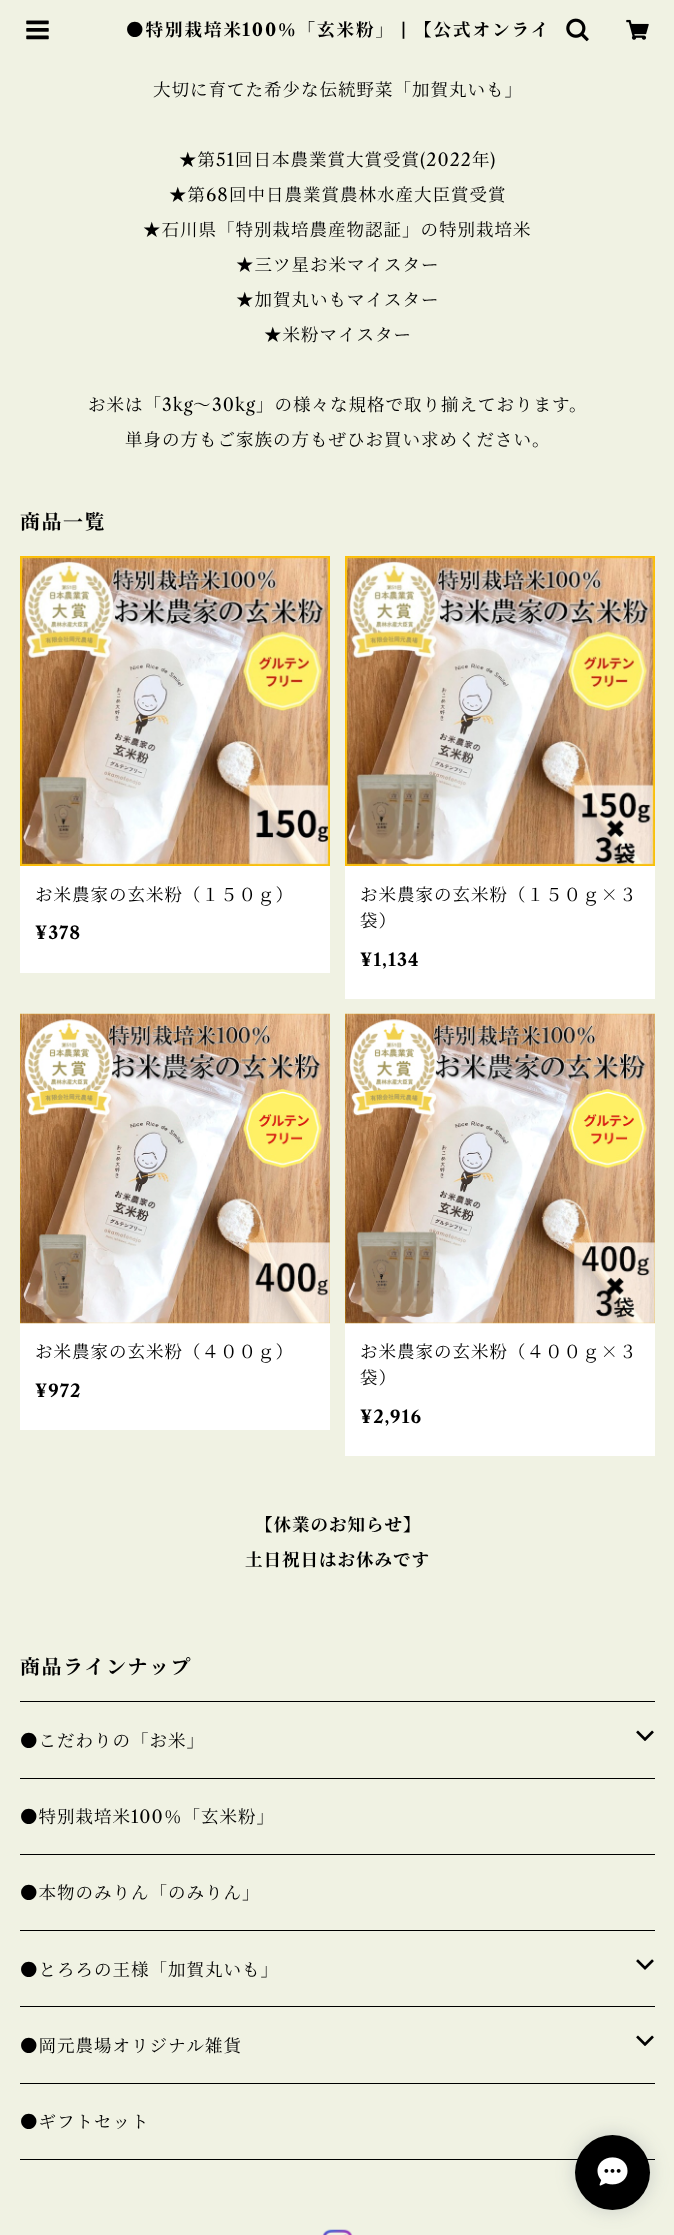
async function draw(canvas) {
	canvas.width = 674;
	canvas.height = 2235;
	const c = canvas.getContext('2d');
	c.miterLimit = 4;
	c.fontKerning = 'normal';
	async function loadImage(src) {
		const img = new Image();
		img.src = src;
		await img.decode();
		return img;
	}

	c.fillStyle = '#f0f2e3';
	c.fillRect(0, 0, 674, 2235);
	c.drawImage(await loadImage('img1.png'), 26, 20, 23, 20);
	c.letterSpacing = '2px';
	c.font = 'bold 17.5px Noto Serif JP';
	c.fillStyle = '#000';
	c.fillText('●特別栽培米', 126, 36);
	c.font = 'bold 17.5px Libre Caslon Text';
	c.fillText('100', 242, 36);
	c.font = 'bold 17.5px Noto Serif JP';
	c.fillText('％「玄米粉」', 278, 36);
	c.font = 'bold 17.5px Libre Caslon Text';
	c.fillText('|', 401, 36);
	c.font = 'bold 17.5px Noto Serif JP';
	c.fillText('【公式オンライ', 414, 36);
	c.drawImage(await loadImage('img2.png'), 566, 18, 23, 24);
	c.drawImage(await loadImage('img3.png'), 626, 19, 23, 21);
	c.letterSpacing = '1px';
	c.font = '17.5px Noto Serif JP';
	c.fillText('大切に育てた希少な伝統野菜「加賀丸いも」', 153, 96);
	c.fillText('★第', 179, 166);
	c.font = '17.5px Libre Caslon Text';
	c.fillText('51', 216, 166);
	c.font = '17.5px Noto Serif JP';
	c.fillText('回日本農業賞大賞受賞', 235, 166);
	c.font = '17.5px Libre Caslon Text';
	c.fillText('(2022', 420, 166);
	c.font = '17.5px Noto Serif JP';
	c.fillText('年', 472, 166);
	c.font = '17.5px Libre Caslon Text';
	c.fillText(')', 490, 166);
	c.font = '17.5px Noto Serif JP';
	c.fillText('★第', 169, 201);
	c.font = '17.5px Libre Caslon Text';
	c.fillText('68', 206, 201);
	c.font = '17.5px Noto Serif JP';
	for (const [text, x, y] of [
		['回中日農業賞農林水産大臣賞受賞', 229, 201],
		['★石川県「特別栽培農産物認証」の特別栽培米', 143, 236],
		['★三ツ星お米マイスター', 236, 271],
		['★加賀丸いもマイスター', 236, 306],
		['★米粉マイスター', 264, 341],
		['お米は「', 88, 411],
	]) {
		c.fillText(text, x, y);
	}
	c.font = '17.5px Libre Caslon Text';
	c.fillText('3kg', 162, 411);
	c.font = '17.5px Noto Serif JP';
	c.fillText('〜', 193, 411);
	c.font = '17.5px Libre Caslon Text';
	c.fillText('30kg', 212, 411);
	c.font = '17.5px Noto Serif JP';
	c.fillText('」の様々な規格で取り揃えております。', 256, 411);
	c.fillText('単身の方もご家族の方もぜひお買い求めください。', 125, 446);
	c.letterSpacing = '1.5px';
	c.font = 'bold 20px Noto Serif JP';
	c.fillText('商品一覧', 20, 529);
	c.fillStyle = '#fff';
	c.fillRect(20, 866, 310, 107);
	c.drawImage(await loadImage('img4.png'), 20, 556, 310, 310);
	c.letterSpacing = '1px';
	c.font = '17.5px Noto Serif JP';
	c.fillStyle = '#000';
	c.fillText('お米農家の玄米粉（１５０ｇ）', 35, 901);
	c.font = 'bold 17.5px Libre Caslon Text';
	c.fillText('¥378', 35, 939);
	c.fillStyle = '#fff';
	c.fillRect(345, 866, 310, 133);
	c.drawImage(await loadImage('img5.png'), 345, 556, 310, 310);
	c.font = '17.5px Noto Serif JP';
	c.fillStyle = '#000';
	c.fillText('お米農家の玄米粉（１５０ｇ×３', 360, 901);
	c.fillText('袋）', 360, 927);
	c.font = 'bold 17.5px Libre Caslon Text';
	c.fillText('¥1,134', 360, 966);
	c.fillStyle = '#fff';
	c.fillRect(20, 1323, 310, 107);
	c.drawImage(await loadImage('img6.png'), 20, 1013, 310, 311);
	c.font = '17.5px Noto Serif JP';
	c.fillStyle = '#000';
	c.fillText('お米農家の玄米粉（４００ｇ）', 35, 1358);
	c.font = 'bold 17.5px Libre Caslon Text';
	c.fillText('¥972', 35, 1397);
	c.fillStyle = '#fff';
	c.fillRect(345, 1323, 310, 133);
	c.drawImage(await loadImage('img7.png'), 345, 1013, 310, 311);
	c.font = '17.5px Noto Serif JP';
	c.fillStyle = '#000';
	c.fillText('お米農家の玄米粉（４００ｇ×３', 360, 1358);
	c.fillText('袋）', 360, 1384);
	c.font = 'bold 17.5px Libre Caslon Text';
	c.fillText('¥2,916', 360, 1423);
	c.font = 'bold 17.5px Noto Serif JP';
	c.fillText('【休業のお知らせ】', 255, 1531);
	c.fillText('土日祝日はお休みです', 245, 1566);
	c.letterSpacing = '1.5px';
	c.font = 'bold 20px Noto Serif JP';
	c.fillText('商品ラインナップ', 20, 1674);
	c.fillRect(20, 1701, 635, 1);
	c.fillRect(20, 2159, 635, 1);
	c.letterSpacing = '1px';
	c.font = '17.5px Noto Serif JP';
	c.fillText('●こだわりの「お米」', 20, 1747);
	c.drawImage(await loadImage('img8.png'), 636, 1730, 18, 11);
	c.fillRect(20, 1778, 635, 1);
	c.fillText('●特別栽培米', 20, 1823);
	c.font = '17.5px Libre Caslon Text';
	c.fillText('100', 131, 1823);
	c.font = '17.5px Noto Serif JP';
	c.fillText('％「玄米粉」', 164, 1823);
	c.fillRect(20, 1854, 635, 1);
	c.fillText('●本物のみりん「のみりん」', 20, 1899);
	c.fillRect(20, 1930, 635, 1);
	c.fillText('●とろろの王様「加賀丸いも」', 20, 1976);
	c.drawImage(await loadImage('img9.png'), 636, 1959, 18, 11);
	c.fillRect(20, 2006, 635, 1);
	c.fillText('●岡元農場オリジナル雑貨', 20, 2052);
	c.drawImage(await loadImage('img8.png'), 636, 2035, 18, 11);
	c.fillRect(20, 2083, 635, 1);
	c.fillText('●ギフトセット', 20, 2128);
	c.drawImage(await loadImage('img10.png'), 322, 2229, 31, 6);
	c.fillStyle = '#33425833';
	c.filter = 'blur(9.5px)';
	c.beginPath();
	c.roundRect(575, 2135, 75, 75, 37.5);
	c.fill();
	c.filter = 'none';
	c.fillStyle = '#000';
	c.beginPath();
	c.arc(612.5, 2172.5, 37.5, 0, 2 * Math.PI);
	c.fill();
	c.drawImage(await loadImage('img11.png'), 597, 2157, 31, 29);
}

draw(document.querySelector('canvas'));
